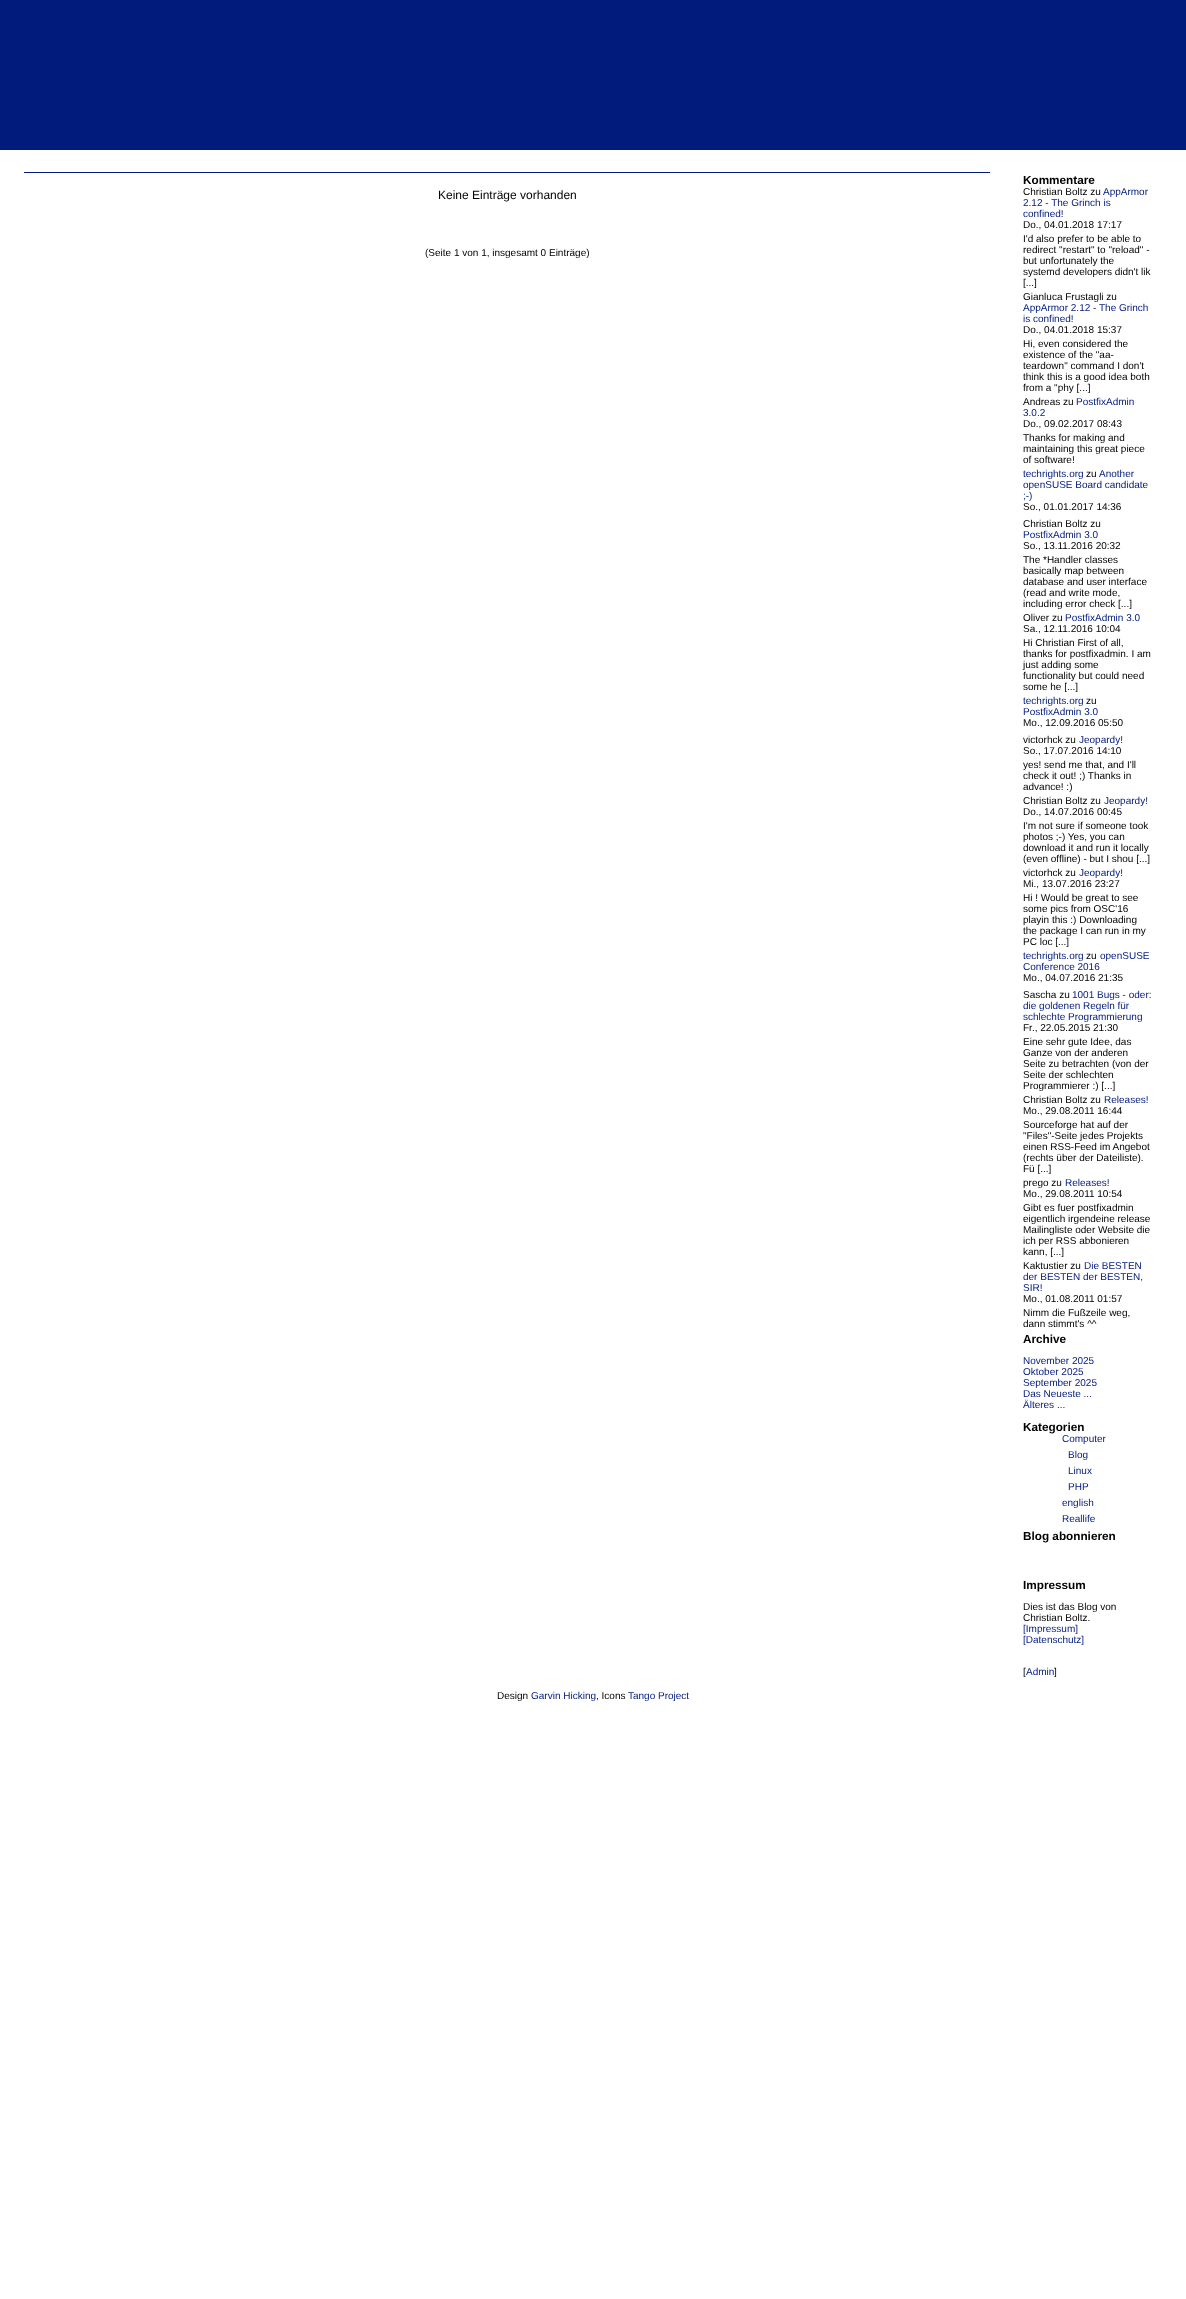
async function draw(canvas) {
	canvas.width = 1186;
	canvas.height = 2299;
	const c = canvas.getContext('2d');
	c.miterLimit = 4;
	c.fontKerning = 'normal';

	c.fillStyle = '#fff';
	c.fillRect(0, 0, 1186, 2299);
	c.fillStyle = '#011b7c';
	c.fillRect(0, 0, 1186, 150);
	c.fillStyle = '#011a7c';
	c.fillRect(24, 172, 966, 1);
	c.font = '12px Liberation Sans';
	c.fillStyle = '#000';
	c.fillText('Keine Einträge vorhanden', 438, 199);
	c.font = '10px Liberation Sans';
	c.fillText('(Seite 1 von 1, insgesamt 0 Einträge)', 425, 256);
	c.font = 'bold 11.75px Liberation Sans';
	c.fillText('Kommentare', 1023, 184);
	c.font = '10px Liberation Sans';
	c.fillText('Christian Boltz zu', 1023, 195);
	c.fillStyle = '#011a7c';
	for (const [text, x, y] of [
		['AppArmor', 1103, 195],
		['2.12 - The Grinch is', 1023, 206],
		['confined!', 1023, 217],
	]) {
		c.fillText(text, x, y);
	}
	c.fillStyle = '#000';
	for (const [text, x, y] of [
		['Do., 04.01.2018 17:17', 1023, 228],
		['I\'d also prefer to be able to', 1023, 242],
		['redirect "restart" to "reload" -', 1023, 253],
		['but unfortunately the', 1023, 264],
		['systemd developers didn\'t lik', 1023, 275],
		['[...]', 1023, 286],
		['Gianluca Frustagli zu', 1023, 300],
	]) {
		c.fillText(text, x, y);
	}
	c.fillStyle = '#011a7c';
	c.fillText('AppArmor 2.12 - The Grinch', 1023, 311);
	c.fillText('is confined!', 1023, 322);
	c.fillStyle = '#000';
	for (const [text, x, y] of [
		['Do., 04.01.2018 15:37', 1023, 333],
		['Hi, even considered the', 1023, 347],
		['existence of the "aa-', 1023, 358],
		['teardown" command I don\'t', 1023, 369],
		['think this is a good idea both', 1023, 380],
		['from a "phy [...]', 1023, 391],
		['Andreas zu', 1023, 405],
	]) {
		c.fillText(text, x, y);
	}
	c.fillStyle = '#011a7c';
	c.fillText('PostfixAdmin', 1076, 405);
	c.fillText('3.0.2', 1023, 416);
	c.fillStyle = '#000';
	for (const [text, x, y] of [
		['Do., 09.02.2017 08:43', 1023, 427],
		['Thanks for making and', 1023, 441],
		['maintaining this great piece', 1023, 452],
		['of software!', 1023, 463],
	]) {
		c.fillText(text, x, y);
	}
	c.fillStyle = '#011a7c';
	c.fillText('techrights.org', 1023, 477);
	c.fillStyle = '#000';
	c.fillText('zu', 1086, 477);
	c.fillStyle = '#011a7c';
	for (const [text, x, y] of [
		['Another', 1099, 477],
		['openSUSE Board candidate', 1023, 488],
		[';-)', 1023, 499],
	]) {
		c.fillText(text, x, y);
	}
	c.fillStyle = '#000';
	c.fillText('So., 01.01.2017 14:36', 1023, 510);
	c.fillText('Christian Boltz zu', 1023, 527);
	c.fillStyle = '#011a7c';
	c.fillText('PostfixAdmin 3.0', 1023, 538);
	c.fillStyle = '#000';
	for (const [text, x, y] of [
		['So., 13.11.2016 20:32', 1023, 549],
		['The *Handler classes', 1023, 563],
		['basically map between', 1023, 574],
		['database and user interface', 1023, 585],
		['(read and write mode,', 1023, 596],
		['including error check [...]', 1023, 607],
		['Oliver zu', 1023, 621],
	]) {
		c.fillText(text, x, y);
	}
	c.fillStyle = '#011a7c';
	c.fillText('PostfixAdmin 3.0', 1065, 621);
	c.fillStyle = '#000';
	for (const [text, x, y] of [
		['Sa., 12.11.2016 10:04', 1023, 632],
		['Hi Christian First of all,', 1023, 646],
		['thanks for postfixadmin. I am', 1023, 657],
		['just adding some', 1023, 668],
		['functionality but could need', 1023, 679],
		['some he [...]', 1023, 690],
	]) {
		c.fillText(text, x, y);
	}
	c.fillStyle = '#011a7c';
	c.fillText('techrights.org', 1023, 704);
	c.fillStyle = '#000';
	c.fillText('zu', 1086, 704);
	c.fillStyle = '#011a7c';
	c.fillText('PostfixAdmin 3.0', 1023, 715);
	c.fillStyle = '#000';
	c.fillText('Mo., 12.09.2016 05:50', 1023, 726);
	c.fillText('victorhck zu', 1023, 743);
	c.fillStyle = '#011a7c';
	c.fillText('Jeopardy!', 1079, 743);
	c.fillStyle = '#000';
	for (const [text, x, y] of [
		['So., 17.07.2016 14:10', 1023, 754],
		['yes! send me that, and I\'ll', 1023, 768],
		['check it out! ;) Thanks in', 1023, 779],
		['advance! :)', 1023, 790],
		['Christian Boltz zu', 1023, 804],
	]) {
		c.fillText(text, x, y);
	}
	c.fillStyle = '#011a7c';
	c.fillText('Jeopardy!', 1104, 804);
	c.fillStyle = '#000';
	for (const [text, x, y] of [
		['Do., 14.07.2016 00:45', 1023, 815],
		['I\'m not sure if someone took', 1023, 829],
		['photos ;-) Yes, you can', 1023, 840],
		['download it and run it locally', 1023, 851],
		['(even offline) - but I shou [...]', 1023, 862],
		['victorhck zu', 1023, 876],
	]) {
		c.fillText(text, x, y);
	}
	c.fillStyle = '#011a7c';
	c.fillText('Jeopardy!', 1079, 876);
	c.fillStyle = '#000';
	for (const [text, x, y] of [
		['Mi., 13.07.2016 23:27', 1023, 887],
		['Hi ! Would be great to see', 1023, 901],
		['some pics from OSC\'16', 1023, 912],
		['playin this :) Downloading', 1023, 923],
		['the package I can run in my', 1023, 934],
		['PC loc [...]', 1023, 945],
	]) {
		c.fillText(text, x, y);
	}
	c.fillStyle = '#011a7c';
	c.fillText('techrights.org', 1023, 959);
	c.fillStyle = '#000';
	c.fillText('zu', 1086, 959);
	c.fillStyle = '#011a7c';
	c.fillText('openSUSE', 1100, 959);
	c.fillText('Conference 2016', 1023, 970);
	c.fillStyle = '#000';
	c.fillText('Mo., 04.07.2016 21:35', 1023, 981);
	c.fillText('Sascha zu', 1023, 998);
	c.fillStyle = '#011a7c';
	for (const [text, x, y] of [
		['1001 Bugs - oder:', 1072, 998],
		['die goldenen Regeln für', 1023, 1009],
		['schlechte Programmierung', 1023, 1020],
	]) {
		c.fillText(text, x, y);
	}
	c.fillStyle = '#000';
	for (const [text, x, y] of [
		['Fr., 22.05.2015 21:30', 1023, 1031],
		['Eine sehr gute Idee, das', 1023, 1045],
		['Ganze von der anderen', 1023, 1056],
		['Seite zu betrachten (von der', 1023, 1067],
		['Seite der schlechten', 1023, 1078],
		['Programmierer :) [...]', 1023, 1089],
		['Christian Boltz zu', 1023, 1103],
	]) {
		c.fillText(text, x, y);
	}
	c.fillStyle = '#011a7c';
	c.fillText('Releases!', 1104, 1103);
	c.fillStyle = '#000';
	for (const [text, x, y] of [
		['Mo., 29.08.2011 16:44', 1023, 1114],
		['Sourceforge hat auf der', 1023, 1128],
		['"Files"-Seite jedes Projekts', 1023, 1139],
		['einen RSS-Feed im Angebot', 1023, 1150],
		['(rechts über der Dateiliste).', 1023, 1161],
		['Fü [...]', 1023, 1172],
		['prego zu', 1023, 1186],
	]) {
		c.fillText(text, x, y);
	}
	c.fillStyle = '#011a7c';
	c.fillText('Releases!', 1065, 1186);
	c.fillStyle = '#000';
	for (const [text, x, y] of [
		['Mo., 29.08.2011 10:54', 1023, 1197],
		['Gibt es fuer postfixadmin', 1023, 1211],
		['eigentlich irgendeine release', 1023, 1222],
		['Mailingliste oder Website die', 1023, 1233],
		['ich per RSS abbonieren', 1023, 1244],
		['kann, [...]', 1023, 1255],
		['Kaktustier zu', 1023, 1269],
	]) {
		c.fillText(text, x, y);
	}
	c.fillStyle = '#011a7c';
	for (const [text, x, y] of [
		['Die BESTEN', 1084, 1269],
		['der BESTEN der BESTEN,', 1023, 1280],
		['SIR!', 1023, 1291],
	]) {
		c.fillText(text, x, y);
	}
	c.fillStyle = '#000';
	for (const [text, x, y] of [
		['Mo., 01.08.2011 01:57', 1023, 1302],
		['Nimm die Fußzeile weg,', 1023, 1316],
		['dann stimmt\'s ^^', 1023, 1327],
	]) {
		c.fillText(text, x, y);
	}
	c.font = 'bold 11.75px Liberation Sans';
	c.fillText('Archive', 1023, 1343);
	c.font = '10px Liberation Sans';
	c.fillStyle = '#011a7c';
	for (const [text, x, y] of [
		['November 2025', 1023, 1364],
		['Oktober 2025', 1023, 1375],
		['September 2025', 1023, 1386],
		['Das Neueste ...', 1023, 1397],
		['Älteres ...', 1023, 1408],
	]) {
		c.fillText(text, x, y);
	}
	c.font = 'bold 11.75px Liberation Sans';
	c.fillStyle = '#000';
	c.fillText('Kategorien', 1023, 1431);
	c.font = '10px Liberation Sans';
	c.fillStyle = '#011a7c';
	for (const [text, x, y] of [
		['Computer', 1062, 1442],
		['Blog', 1068, 1458],
		['Linux', 1068, 1474],
		['PHP', 1068, 1490],
		['english', 1062, 1506],
		['Reallife', 1062, 1522],
	]) {
		c.fillText(text, x, y);
	}
	c.font = 'bold 11.75px Liberation Sans';
	c.fillStyle = '#000';
	c.fillText('Blog abonnieren', 1023, 1540);
	c.fillText('Impressum', 1023, 1589);
	c.font = '10px Liberation Sans';
	c.fillText('Dies ist das Blog von', 1023, 1610);
	c.fillText('Christian Boltz.', 1023, 1621);
	c.fillStyle = '#011a7c';
	c.fillText('[Impressum]', 1023, 1632);
	c.fillText('[Datenschutz]', 1023, 1643);
	c.fillStyle = '#000';
	c.fillText('[', 1023, 1675);
	c.fillStyle = '#011a7c';
	c.fillText('Admin', 1026, 1675);
	c.fillStyle = '#000';
	c.fillText(']', 1054, 1675);
	c.fillText('Design', 497, 1699);
	c.fillStyle = '#011a7c';
	c.fillText('Garvin Hicking', 531, 1699);
	c.fillStyle = '#000';
	c.fillText(', Icons', 596, 1699);
	c.fillStyle = '#011a7c';
	c.fillText('Tango Project', 628, 1699);
}

draw(document.querySelector('canvas'));
